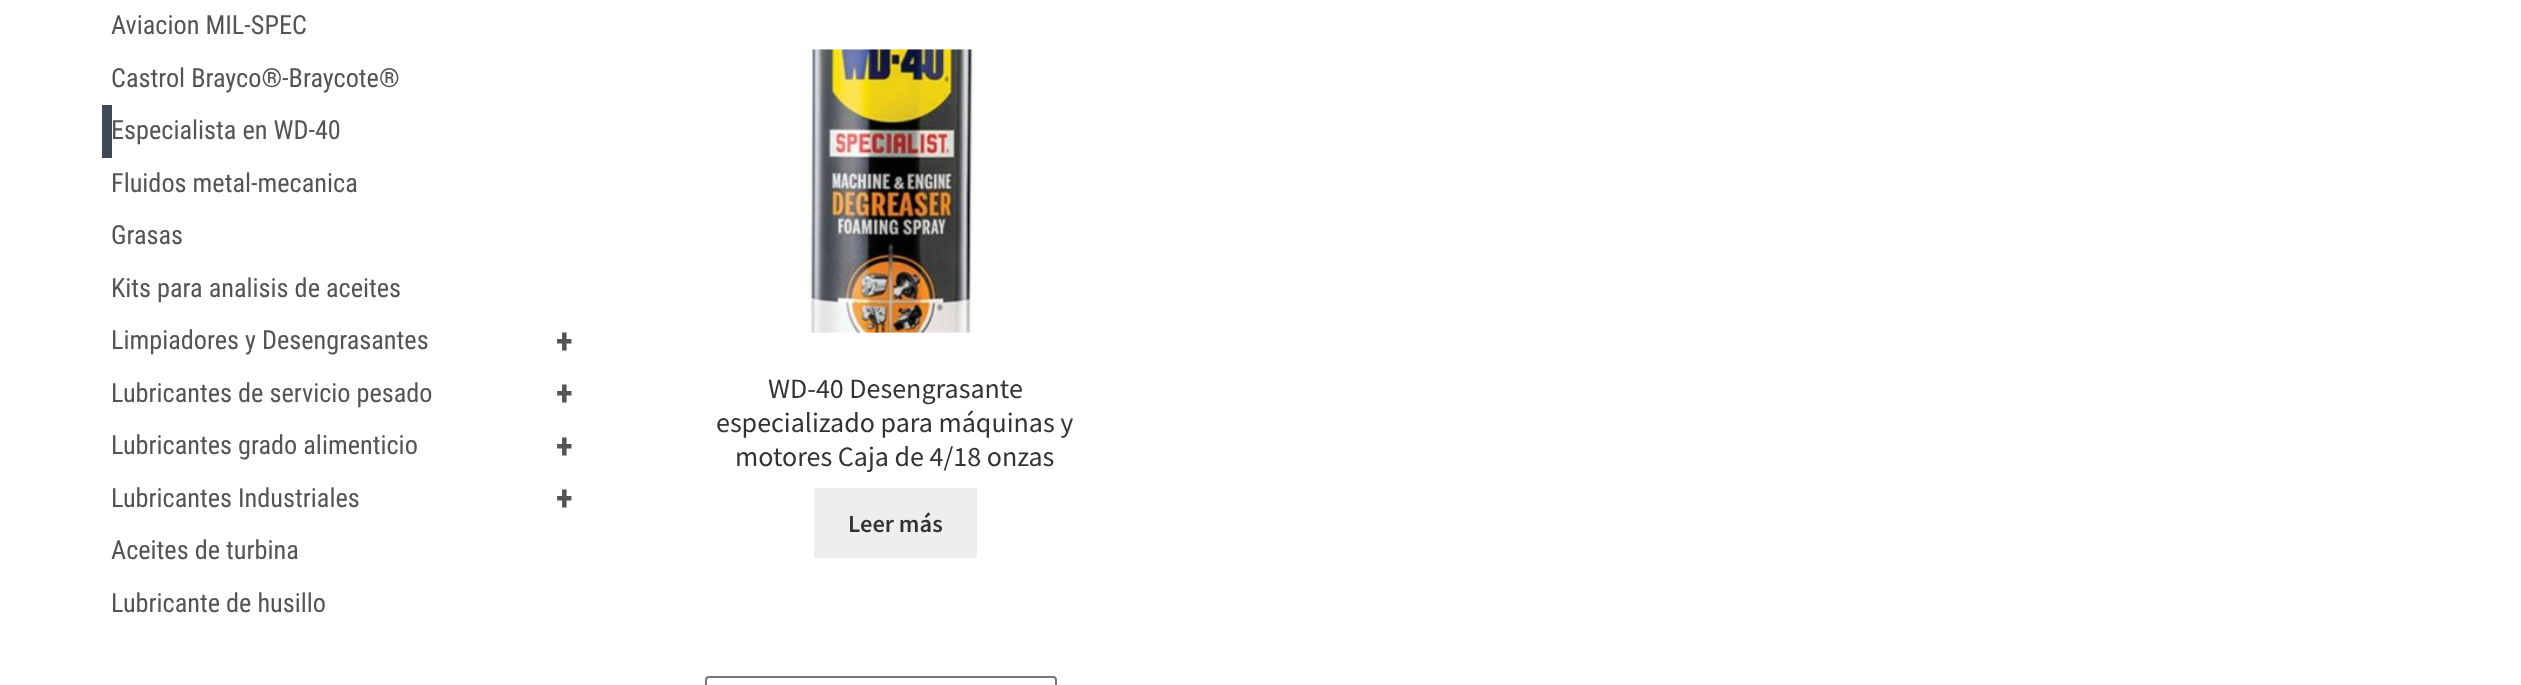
async function draw(canvas) {
	canvas.width = 2521;
	canvas.height = 685;
	const c = canvas.getContext('2d');
	c.miterLimit = 4;
	c.fontKerning = 'normal';
	async function loadImage(src) {
		const img = new Image();
		img.src = src;
		await img.decode();
		return img;
	}

	c.fillStyle = '#fff';
	c.fillRect(0, 0, 2521, 685);
	c.font = '26.25px Roboto Condensed';
	c.fillStyle = '#545454';
	c.fillText('Aviacion MIL-SPEC', 111, 34);
	c.fillText('Castrol Brayco®-Braycote®', 111, 87);
	c.fillStyle = '#414956';
	c.fillRect(102, 105, 10, 53);
	c.fillStyle = '#545454';
	for (const [text, x, y] of [
		['Especialista en WD-40', 111, 139],
		['Fluidos metal-mecanica', 111, 192],
		['Grasas', 111, 244],
		['Kits para analisis de aceites', 111, 297],
		['Limpiadores y Desengrasantes', 111, 349],
	]) {
		c.fillText(text, x, y);
	}
	c.font = 'bold 35px Roboto Condensed';
	c.fillText('+', 556, 353);
	c.font = '26.25px Roboto Condensed';
	c.fillText('Lubricantes de servicio pesado', 111, 402);
	c.font = 'bold 35px Roboto Condensed';
	c.fillText('+', 556, 405);
	c.font = '26.25px Roboto Condensed';
	c.fillText('Lubricantes grado alimenticio', 111, 454);
	c.font = 'bold 35px Roboto Condensed';
	c.fillText('+', 556, 458);
	c.font = '26.25px Roboto Condensed';
	c.fillText('Lubricantes Industriales', 111, 507);
	c.font = 'bold 35px Roboto Condensed';
	c.fillText('+', 556, 510);
	c.font = '26.25px Roboto Condensed';
	c.fillText('Aceites de turbina', 111, 559);
	c.fillText('Lubricante de husillo', 111, 612);
	c.drawImage(await loadImage('img1.png'), 804, 49, 171, 284);
	c.font = '28px Source Sans Pro';
	c.fillStyle = '#333';
	for (const [text, x, y] of [
		['WD-40 Desengrasante', 768, 398],
		['especializado para máquinas y', 716, 432],
		['motores Caja de 4/18 onzas', 735, 466],
	]) {
		c.fillText(text, x, y);
	}
	c.fillStyle = '#eee';
	c.fillRect(814, 488, 163, 70);
	c.font = '600 24.5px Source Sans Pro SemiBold';
	c.fillStyle = '#333';
	c.fillText('Leer más', 848, 532);
	c.beginPath();
	c.roundRect(706, 677, 350, 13, 3);
	c.strokeStyle = '#767676';
	c.lineWidth = 2;
	c.stroke();
}

draw(document.querySelector('canvas'));
